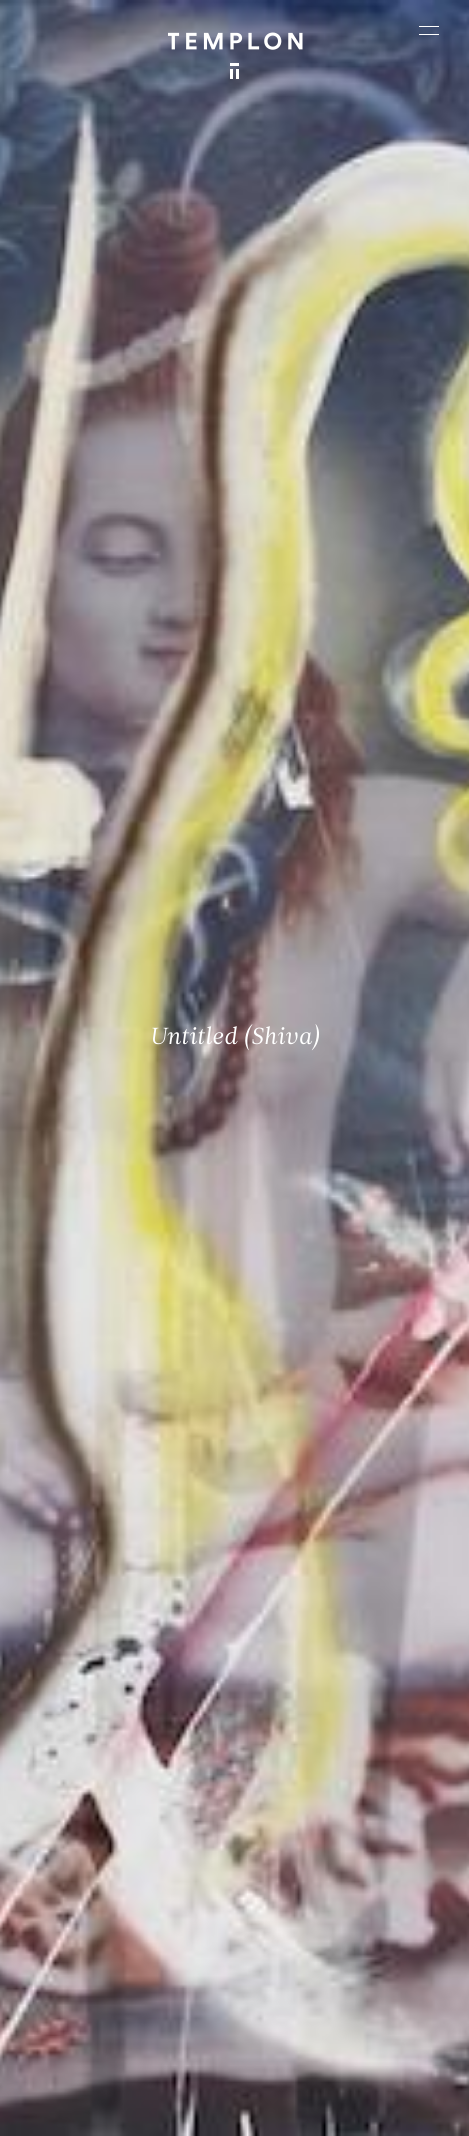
async function draw(canvas) {
	canvas.width = 469;
	canvas.height = 2136;
	const c = canvas.getContext('2d');
	c.miterLimit = 4;
	c.fontKerning = 'normal';
	async function loadImage(src) {
		const img = new Image();
		img.src = src;
		await img.decode();
		return img;
	}

	c.fillStyle = '#fff';
	c.fillRect(0, 0, 469, 2136);
	c.drawImage(await loadImage('img1.png'), 0, 0, 469, 2136);
	c.drawImage(await loadImage('img2.png'), 152, 1024, 167, 27);
	c.fillRect(419, 26, 20, 1);
	c.fillRect(419, 34, 20, 1);
	c.drawImage(await loadImage('img3.png'), 168, 32, 135, 18);
	for (const [x, y, w, h, color] of [
		[230, 69, 3, 10, '#fff'],
		[236, 69, 3, 10, '#fff'],
		[230, 63, 9, 3, '#fff'],
	]) {
		c.fillStyle = color;
		c.fillRect(x, y, w, h);
	}
}

draw(document.querySelector('canvas'));
